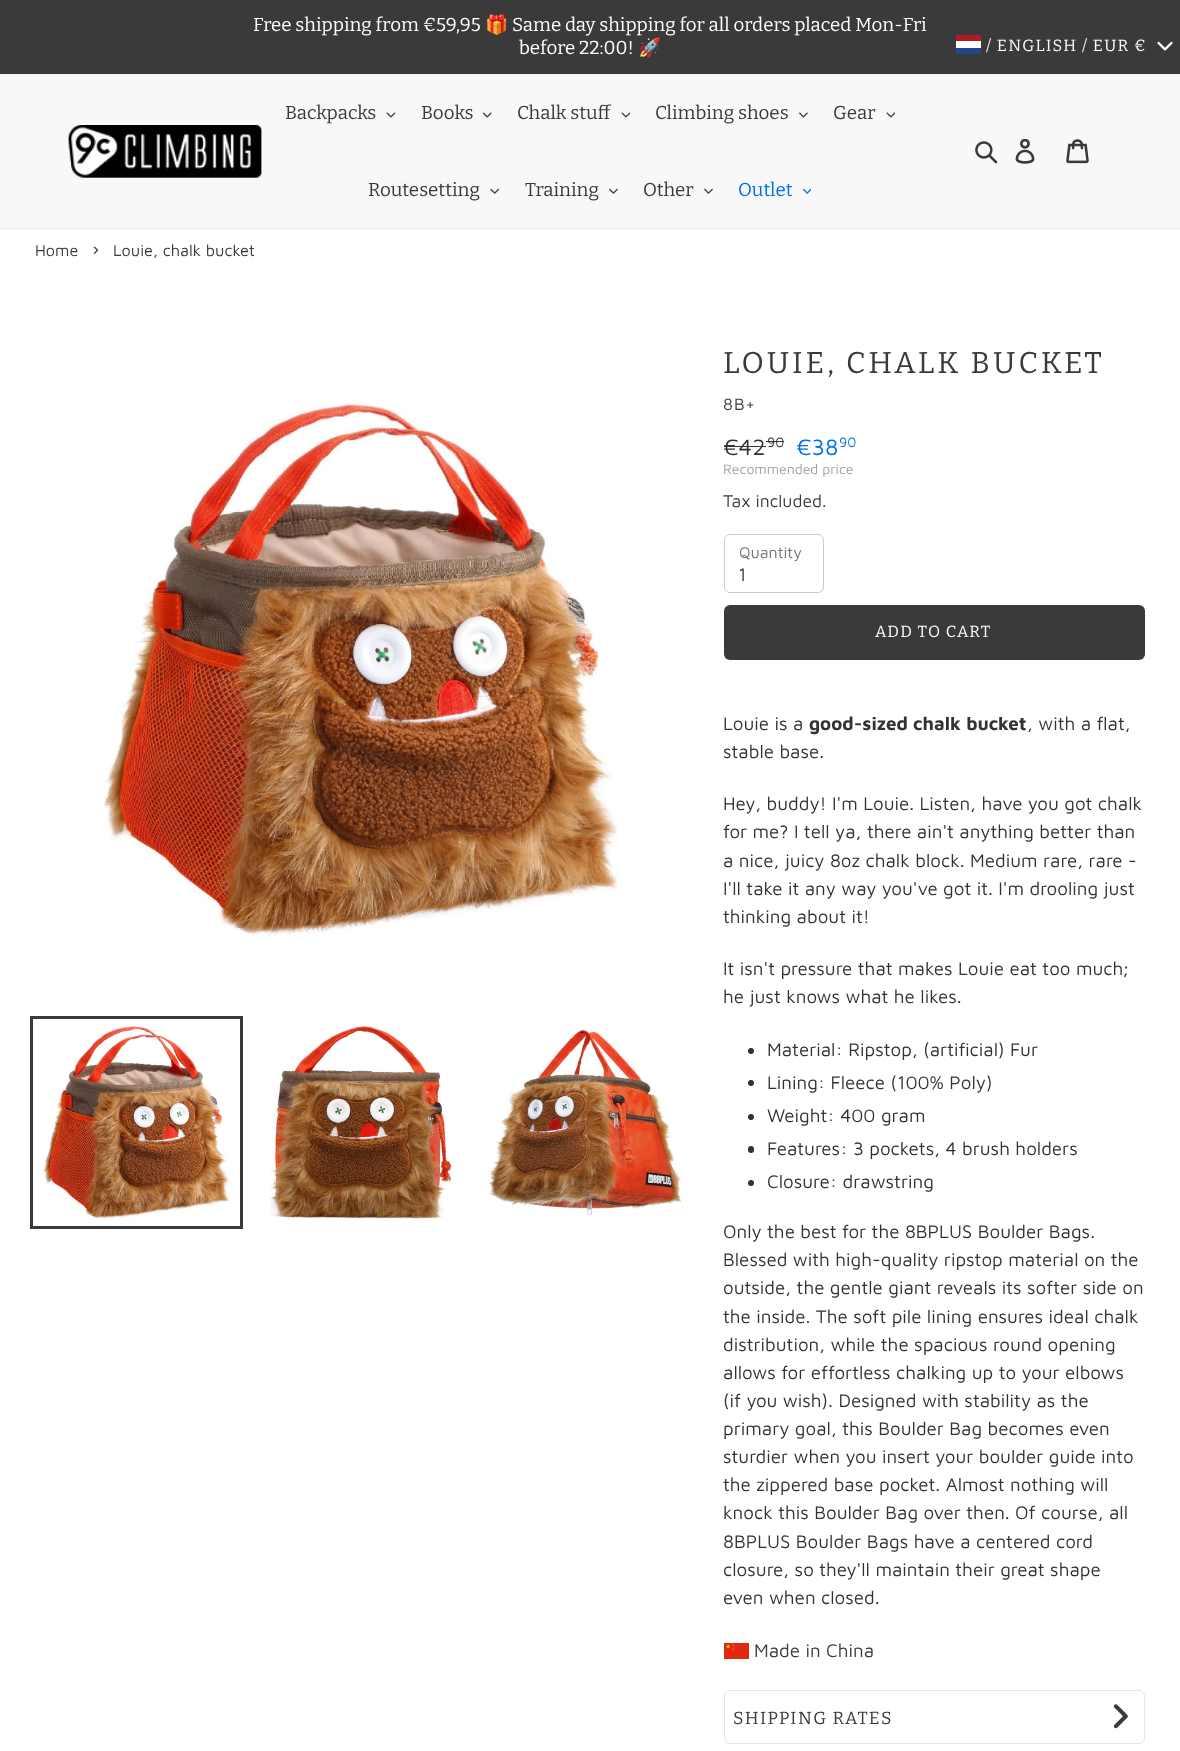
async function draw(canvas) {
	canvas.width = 1180;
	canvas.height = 1751;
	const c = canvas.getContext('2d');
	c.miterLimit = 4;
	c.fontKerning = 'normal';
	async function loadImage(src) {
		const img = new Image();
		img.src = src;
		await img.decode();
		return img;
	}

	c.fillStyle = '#fff';
	c.fillRect(0, 0, 1180, 1751);
	c.fillStyle = '#3a3a3a';
	c.fillRect(0, 0, 1180, 74);
	c.font = '18.75px Bitter';
	c.fillStyle = '#fff';
	c.fillText('Free shipping from €59,95', 253, 31);
	c.font = '18.75px Noto Color Emoji';
	c.fillText('🎁', 485, 31);
	c.font = '18.75px Bitter';
	c.fillText('Same day shipping for all orders placed Mon-Fri', 512, 31);
	c.fillText('before 22:00!', 519, 54);
	c.font = '18.75px Noto Color Emoji';
	c.fillText('🚀', 638, 54);
	c.fillStyle = '#ae1c28';
	c.fillRect(956, 35, 25, 6);
	c.letterSpacing = '1.25px';
	c.font = '16.25px Bitter';
	c.fillStyle = '#fff';
	c.fillText('/ ENGLISH / EUR €', 986, 51);
	c.fillRect(956, 41, 25, 7);
	c.fillStyle = '#21468b';
	c.fillRect(956, 48, 25, 6);
	c.drawImage(await loadImage('img1.png'), 1157, 41, 16, 10);
	c.fillStyle = '#f8f8f8';
	c.fillRect(0, 74, 1180, 154);
	c.fillStyle = '#e5e5e5';
	c.fillRect(0, 228, 1180, 1);
	c.drawImage(await loadImage('img2.png'), 68, 125, 194, 53);
	c.drawImage(await loadImage('img3.png'), 68, 125, 194, 53);
	c.letterSpacing = '0px';
	c.font = '18.75px Bitter';
	c.fillStyle = '#3a3a3a';
	c.fillText('Backpacks', 285, 119);
	c.drawImage(await loadImage('img4.png'), 386, 112, 9, 6);
	c.fillText('Books', 421, 119);
	c.drawImage(await loadImage('img5.png'), 483, 112, 9, 6);
	c.fillText('Chalk stuff', 517, 119);
	c.drawImage(await loadImage('img4.png'), 621, 112, 9, 6);
	c.fillText('Climbing shoes', 655, 119);
	c.drawImage(await loadImage('img6.png'), 799, 112, 9, 6);
	c.fillText('Gear', 833, 119);
	c.drawImage(await loadImage('img4.png'), 886, 112, 9, 6);
	c.fillText('Routesetting', 368, 196);
	c.drawImage(await loadImage('img7.png'), 490, 188, 9, 6);
	c.fillText('Training', 525, 196);
	c.drawImage(await loadImage('img8.png'), 609, 188, 9, 6);
	c.fillText('Other', 643, 196);
	c.drawImage(await loadImage('img8.png'), 704, 188, 9, 6);
	c.fillStyle = '#0071e3';
	c.fillText('Outlet', 738, 196);
	c.drawImage(await loadImage('img9.png'), 803, 188, 8, 6);
	c.drawImage(await loadImage('img10.png'), 975, 141, 23, 23);
	c.drawImage(await loadImage('img11.png'), 1015, 139, 20, 25);
	c.drawImage(await loadImage('img12.png'), 1066, 139, 23, 25);
	c.font = '16.25px Maven Pro';
	c.fillStyle = '#3a3a3a';
	c.fillText('Home', 35, 256);
	c.font = '18.75px Maven Pro';
	c.fillText('›', 92, 255);
	c.font = '16.25px Maven Pro';
	c.fillText('Louie, chalk bucket', 113, 256);
	c.drawImage(await loadImage('img13.png'), 104, 404, 514, 532);
	c.strokeStyle = '#3a3a3a';
	c.lineWidth = 3;
	c.strokeRect(31.5, 1017.5, 210, 210);
	c.drawImage(await loadImage('img14.png'), 43, 1024, 188, 195);
	c.drawImage(await loadImage('img15.png'), 270, 1024, 184, 195);
	c.drawImage(await loadImage('img16.png'), 489, 1027, 195, 188);
	c.letterSpacing = '3px';
	c.font = '30px Bitter';
	c.fillText('LOUIE, CHALK BUCKET', 723, 373);
	c.letterSpacing = '1px';
	c.font = '17px Maven Pro';
	c.fillText('8B+', 723, 410);
	c.letterSpacing = '0px';
	c.font = '23px Maven Pro';
	c.fillStyle = '#323232';
	c.fillText('€42', 723, 455);
	c.fillRect(724, 446, 42, 1);
	c.font = '14px Maven Pro';
	c.fillText('90', 767, 447);
	c.fillRect(766, 441, 18, 1);
	c.fillStyle = '#a0a0a0';
	c.fillText('Recommended price', 723, 474);
	c.font = '23px Maven Pro';
	c.fillStyle = '#0071e3';
	c.fillText('€38', 796, 455);
	c.font = '14px Maven Pro';
	c.fillText('90', 839, 447);
	c.font = '17.5px Maven Pro';
	c.fillStyle = '#3a3a3a';
	c.fillText('Tax included.', 723, 507);
	c.beginPath();
	c.roundRect(724.5, 534.5, 99, 58, 5.5);
	c.strokeStyle = '#ccc';
	c.lineWidth = 1;
	c.stroke();
	c.font = '16px Maven Pro';
	c.fillStyle = '#737373';
	c.fillText('Quantity', 739, 558);
	c.font = '18.75px Maven Pro';
	c.fillStyle = '#3a3a3a';
	c.fillText('1', 738, 581);
	c.beginPath();
	c.roundRect(724, 605, 421, 55, 6);
	c.fill();
	c.letterSpacing = '1.25px';
	c.font = '16.25px Bitter';
	c.fillStyle = '#fff';
	c.fillText('ADD TO CART', 875, 637);
	c.letterSpacing = '0px';
	c.font = '18.75px Maven Pro';
	c.fillStyle = '#323232';
	c.fillText('Louie is a', 723, 730);
	c.font = 'bold 18.75px Maven Pro';
	c.fillText('good-sized chalk bucket', 809, 730);
	c.font = '18.75px Maven Pro';
	for (const [text, x, y] of [
		[', with a flat,', 1027, 730],
		['stable base.', 723, 758],
		['Hey, buddy! I\'m Louie. Listen, have you got chalk', 723, 810],
		['for me? I tell ya, there ain\'t anything better than', 723, 838],
		['a nice, juicy 8oz chalk block. Medium rare, rare -', 723, 867],
		['I\'ll take it any way you\'ve got it. I\'m drooling just', 723, 895],
		['thinking about it!', 723, 923],
		['It isn\'t pressure that makes Louie eat too much;', 723, 975],
		['he just knows what he likes.', 723, 1003],
	]) {
		c.fillText(text, x, y);
	}
	c.beginPath();
	c.arc(751, 1051, 3, 0, 2 * Math.PI);
	c.fill();
	c.fillText('Material: Ripstop, (artificial) Fur', 767, 1056);
	c.beginPath();
	c.arc(751, 1083, 3, 0, 2 * Math.PI);
	c.fill();
	c.fillText('Lining: Fleece (100% Poly)', 767, 1089);
	c.beginPath();
	c.arc(751, 1117, 3, 0, 2 * Math.PI);
	c.fill();
	c.fillText('Weight: 400 gram', 767, 1122);
	c.beginPath();
	c.roundRect(748, 1146, 6, 7, 3);
	c.fill();
	c.fillText('Features: 3 pockets, 4 brush holders', 767, 1155);
	c.beginPath();
	c.arc(751, 1183, 3, 0, 2 * Math.PI);
	c.fill();
	for (const [text, x, y] of [
		['Closure: drawstring', 767, 1188],
		['Only the best for the 8BPLUS Boulder Bags.', 723, 1238],
		['Blessed with high-quality ripstop material on the', 723, 1266],
		['outside, the gentle giant reveals its softer side on', 723, 1294],
		['the inside. The soft pile lining ensures ideal chalk', 723, 1323],
		['distribution, while the spacious round opening', 723, 1351],
		['allows for effortless chalking up to your elbows', 723, 1379],
		['(if you wish). Designed with stability as the', 723, 1407],
		['primary goal, this Boulder Bag becomes even', 723, 1435],
		['sturdier when you insert your boulder guide into', 723, 1463],
		['the zippered base pocket. Almost nothing will', 723, 1491],
		['knock this Boulder Bag over then. Of course, all', 723, 1519],
		['8BPLUS Boulder Bags have a centered cord', 723, 1548],
		['closure, so they\'ll maintain their great shape', 723, 1576],
		['even when closed.', 723, 1604],
	]) {
		c.fillText(text, x, y);
	}
	c.drawImage(await loadImage('img17.png'), 724, 1643, 25, 16);
	c.fillStyle = '#3a3a3a';
	c.fillText('Made in China', 754, 1657);
	c.beginPath();
	c.roundRect(724.5, 1690.5, 420, 53, 5.5);
	c.strokeStyle = '#e5e5e5';
	c.stroke();
	c.letterSpacing = '1.4px';
	c.font = '17.5px Bitter';
	c.fillText('SHIPPING RATES', 733, 1724);
	c.drawImage(await loadImage('img18.png'), 1113, 1704, 15, 25);
}

draw(document.querySelector('canvas'));
